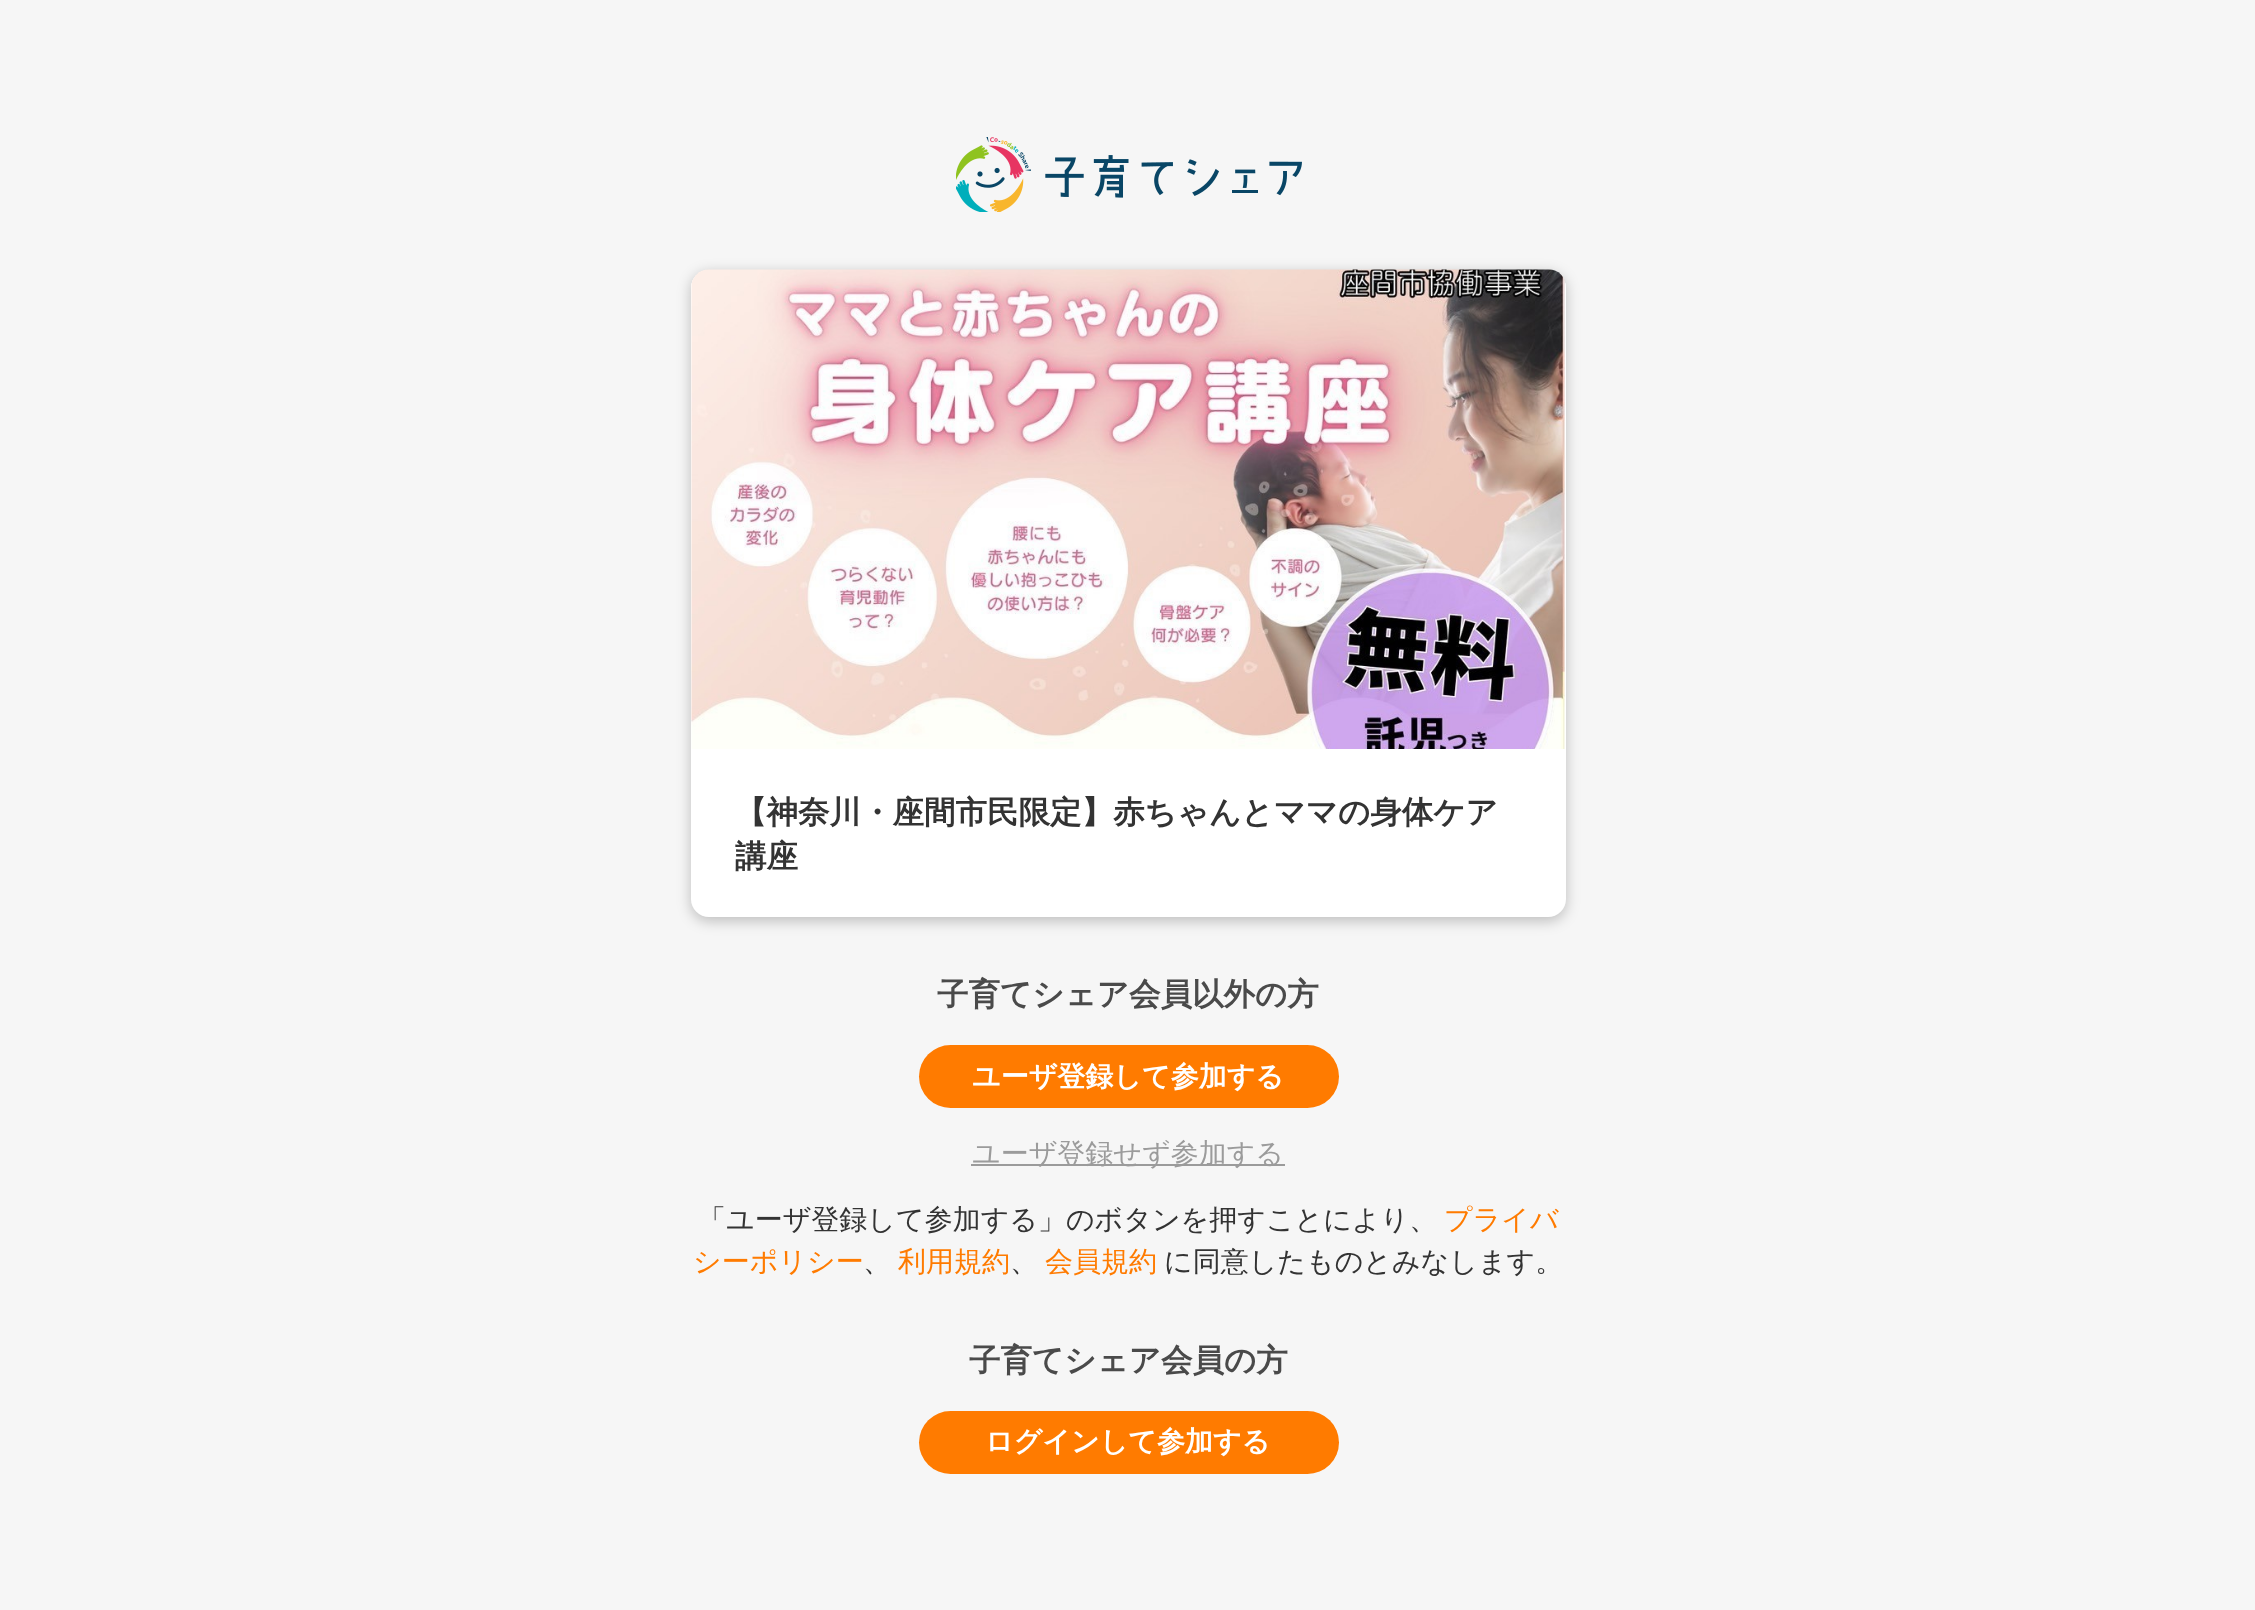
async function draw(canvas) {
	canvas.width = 2255;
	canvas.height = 1610;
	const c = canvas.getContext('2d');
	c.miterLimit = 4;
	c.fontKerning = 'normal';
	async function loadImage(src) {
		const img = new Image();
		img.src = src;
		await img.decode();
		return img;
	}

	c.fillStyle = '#f6f6f6';
	c.fillRect(0, 0, 2255, 1610);
	c.drawImage(await loadImage('img1.png'), 956, 137, 346, 75);
	c.fillStyle = '#0000003b';
	c.filter = 'blur(7px)';
	c.beginPath();
	c.roundRect(691, 273, 875, 648, 18);
	c.fill();
	c.filter = 'none';
	c.fillStyle = '#fff';
	c.beginPath();
	c.roundRect(691, 270, 875, 647, 18);
	c.fill();
	c.beginPath();
	c.roundRect(691, 270, 875, 479, [18, 18, 0, 0]);
	c.fill();
	c.drawImage(await loadImage('img2.png'), 691, 269, 874, 480);
	c.font = 'bold 31.5px WenQuanYi Zen Hei';
	c.fillStyle = '#333';
	c.fillText('【神奈川・座間市民限定】赤ちゃんとママの身体ケア', 735, 823);
	c.fillText('講座', 735, 867);
	c.fillStyle = '#4a4a4a';
	c.fillText('子育てシェア会員以外の方', 937, 1005);
	c.fillStyle = '#ff7b00';
	c.beginPath();
	c.roundRect(919, 1045, 420, 63, 31.5);
	c.fill();
	c.font = 'bold 28px WenQuanYi Zen Hei';
	c.fillStyle = '#fff';
	c.fillText('ユーザ登録して参加する', 972, 1086);
	c.fillStyle = '#9b9b9b';
	c.fillRect(971, 1164, 314, 2);
	c.font = '500 28px WenQuanYi Zen Hei';
	c.fillText('ユーザ登録せず参加する', 972, 1163);
	c.fillStyle = '#333';
	c.fillText('「ユーザ登録して参加する」のボタンを押すことにより、', 698, 1229);
	c.fillStyle = '#ff7b00';
	c.fillText('プライバ', 1444, 1229);
	c.fillText('シーポリシー', 693, 1271);
	c.fillStyle = '#333';
	c.fillText('、', 863, 1271);
	c.fillStyle = '#ff7b00';
	c.fillText('利用規約', 898, 1271);
	c.fillStyle = '#333';
	c.fillText('、', 1010, 1271);
	c.fillStyle = '#ff7b00';
	c.fillText('会員規約', 1045, 1271);
	c.fillStyle = '#333';
	c.fillText('に同意したものとみなします。', 1164, 1271);
	c.font = 'bold 31.5px WenQuanYi Zen Hei';
	c.fillStyle = '#4a4a4a';
	c.fillText('子育てシェア会員の方', 969, 1371);
	c.fillStyle = '#ff7b00';
	c.beginPath();
	c.roundRect(919, 1411, 420, 63, 31.5);
	c.fill();
	c.font = 'bold 28px WenQuanYi Zen Hei';
	c.fillStyle = '#fff';
	c.fillText('ログインして参加する', 985, 1451);
}

draw(document.querySelector('canvas'));
